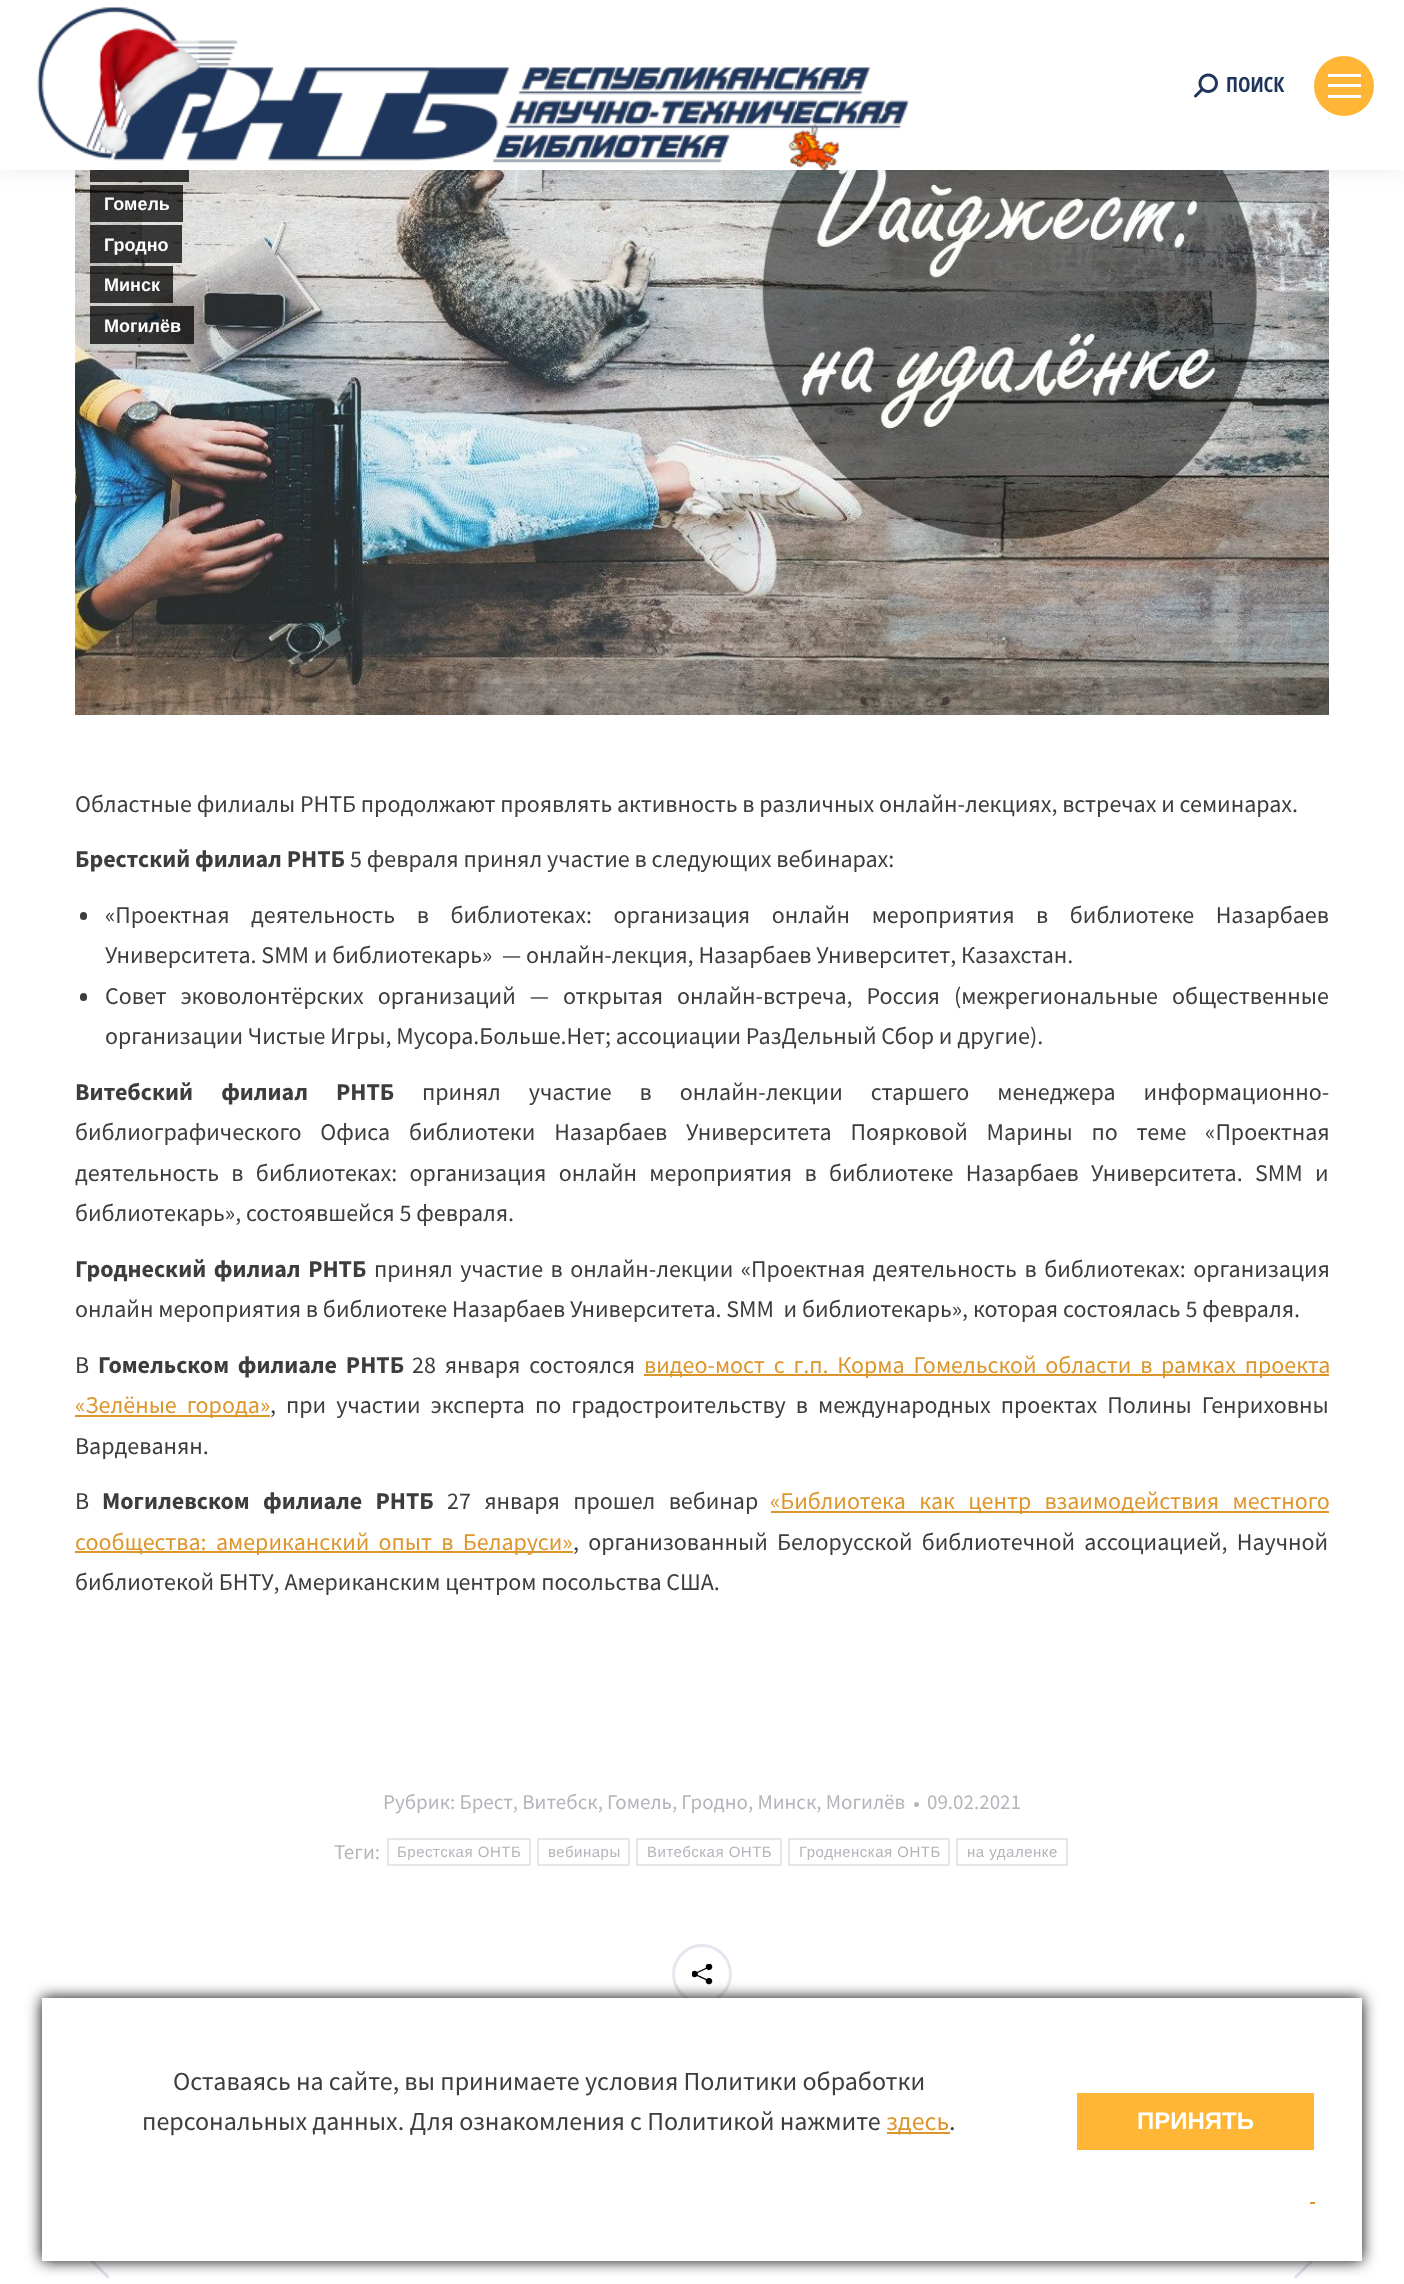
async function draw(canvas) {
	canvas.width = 1404;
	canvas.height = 2284;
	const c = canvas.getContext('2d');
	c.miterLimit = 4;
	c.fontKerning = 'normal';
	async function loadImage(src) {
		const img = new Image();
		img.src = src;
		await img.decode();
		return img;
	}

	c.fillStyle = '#fff';
	c.fillRect(0, 0, 1404, 2284);
	c.drawImage(await loadImage('img3.png'), 75, 170, 1254, 545);
	c.fillStyle = '#000000bf';
	c.fillRect(90, 170, 99, 12);
	c.fillRect(90, 185, 93, 37);
	c.fillStyle = '#00000012';
	c.filter = 'blur(11px)';
	c.beginPath();
	c.rect(-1, -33, 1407, 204);
	c.fill();
	c.filter = 'none';
	c.fillStyle = '#fff';
	c.fillRect(0, 0, 1404, 170);
	c.drawImage(await loadImage('img1.png'), 37, 7, 873, 163);
	c.drawImage(await loadImage('img2.png'), 1194, 73, 24, 25);
	c.font = 'bold 21px Open Sans Condensed';
	c.fillStyle = '#1f365c';
	c.fillText('ПОИСК', 1226, 92);
	c.fillStyle = '#ffb536';
	c.beginPath();
	c.arc(1344, 86, 30, 0, 2 * Math.PI);
	c.fill();
	for (const [x, y, w, h, color] of [
		[1328, 74, 33, 3, '#fff'],
		[1328, 84, 33, 3, '#fff'],
		[1328, 95, 33, 3, '#fff'],
	]) {
		c.fillStyle = color;
		c.fillRect(x, y, w, h);
	}
	c.font = 'bold 18px Liberation Sans';
	c.fillText('Гомель', 104, 210);
	c.fillStyle = '#000000bf';
	c.fillRect(90, 225, 92, 38);
	c.fillStyle = '#fff';
	c.fillText('Гродно', 104, 251);
	c.fillStyle = '#000000bf';
	c.fillRect(90, 266, 83, 37);
	c.fillStyle = '#fff';
	c.fillText('Минск', 104, 291);
	c.fillStyle = '#000000bf';
	c.fillRect(90, 306, 104, 38);
	c.fillStyle = '#fff';
	c.fillText('Могилёв', 104, 332);
	c.font = '24px Source Sans Pro';
	c.fillStyle = '#3d3d3d';
	c.fillText('Областные филиалы РНТБ продолжают проявлять активность в различных онлайн-лекциях, встречах и семинарах.', 75, 812);
	c.font = 'bold 24px Source Sans Pro';
	c.fillText('Брестский филиал РНТБ', 75, 867);
	c.font = '24px Source Sans Pro';
	c.fillText('5 февраля принял участие в следующих вебинарах:', 350, 867);
	c.beginPath();
	c.roundRect(80, 912, 7, 8, 3.5);
	c.fill();
	c.wordSpacing = '16.75px';
	c.fillText('«Проектная деятельность в библиотеках: организация онлайн мероприятия в библиотеке Назарбаев', 105, 923);
	c.wordSpacing = '0px';
	c.fillText('Университета. SMM и библиотекарь»  — онлайн-лекция, Назарбаев Университет, Казахстан.', 105, 963);
	c.beginPath();
	c.roundRect(80, 993, 7, 8, 3.5);
	c.fill();
	c.wordSpacing = '9.25px';
	c.fillText('Совет эковолонтёрских организаций — открытая онлайн-встреча, Россия (межрегиональные общественные', 105, 1004);
	c.wordSpacing = '0px';
	c.fillText('организации Чистые Игры, Мусора.Больше.Нет; ассоциации РазДельный Сбор и другие).', 105, 1044);
	c.wordSpacing = '23.25px';
	c.font = 'bold 24px Source Sans Pro';
	c.fillText('Витебский филиал РНТБ', 75, 1100);
	c.font = '24px Source Sans Pro';
	c.fillText('принял участие в онлайн-лекции старшего менеджера информационно-', 422, 1100);
	c.wordSpacing = '14px';
	c.fillText('библиографического Офиса библиотеки Назарбаев Университета Поярковой Марины по теме «Проектная', 75, 1140);
	c.wordSpacing = '7.5px';
	c.fillText('деятельность в библиотеках: организация онлайн мероприятия в библиотеке Назарбаев Университета. SMM и', 75, 1181);
	c.wordSpacing = '0px';
	c.fillText('библиотекарь», состоявшейся 5 февраля.', 75, 1221);
	c.wordSpacing = '2.75px';
	c.font = 'bold 24px Source Sans Pro';
	c.fillText('Гроднеский филиал РНТБ', 75, 1277);
	c.font = '24px Source Sans Pro';
	c.fillText('принял участие в онлайн-лекции «Проектная деятельность в библиотеках: организация', 374, 1277);
	c.wordSpacing = '0px';
	c.fillText('онлайн мероприятия в библиотеке Назарбаев Университета. SMM  и библиотекарь», которая состоялась 5 февраля.', 75, 1317);
	c.fillText('В', 75, 1373);
	c.wordSpacing = '4px';
	c.font = 'bold 24px Source Sans Pro';
	c.fillText('Гомельском филиале РНТБ', 98, 1373);
	c.font = '24px Source Sans Pro';
	c.fillText('28 января состоялся', 412, 1373);
	c.fillStyle = '#dd962c';
	c.fillRect(644, 1374, 685, 2);
	c.fillText('видео-мост с г.п. Корма Гомельской области в рамках проекта', 644, 1373);
	c.fillRect(75, 1415, 195, 2);
	c.wordSpacing = '5.25px';
	c.fillText('«Зелёные города»', 75, 1413);
	c.fillStyle = '#3d3d3d';
	c.fillText(', при участии эксперта по градостроительству в международных проектах Полины Генриховны', 270, 1413);
	c.wordSpacing = '0px';
	c.fillText('Вардеванян.', 75, 1454);
	c.fillText('В', 75, 1509);
	c.wordSpacing = '8.5px';
	c.font = 'bold 24px Source Sans Pro';
	c.fillText('Могилевском филиале РНТБ', 102, 1509);
	c.font = '24px Source Sans Pro';
	c.fillText('27 января прошел вебинар', 447, 1509);
	c.fillStyle = '#dd962c';
	c.fillRect(771, 1511, 558, 2);
	c.fillText('«Библиотека как центр взаимодействия местного', 770, 1509);
	c.fillRect(75, 1551, 498, 2);
	c.wordSpacing = '4.5px';
	c.fillText('сообщества: американский опыт в Беларуси»', 75, 1550);
	c.fillStyle = '#3d3d3d';
	c.fillText(', организованный Белорусской библиотечной ассоциацией, Научной', 573, 1550);
	c.wordSpacing = '0px';
	c.fillText('библиотекой БНТУ, Американским центром посольства США.', 75, 1590);
	c.font = '21px Source Sans Pro';
	c.fillStyle = '#b4b5bb';
	c.fillText('Рубрик: Брест, Витебск, Гомель, Гродно, Минск, Могилёв', 383, 1809);
	c.beginPath();
	c.arc(916.5, 1804.5, 2.5, 0, 2 * Math.PI);
	c.fill();
	c.fillText('09.02.2021', 927, 1809);
	c.fillText('Теги:', 334, 1859);
	c.strokeStyle = '#e7e7e7';
	c.lineWidth = 2;
	c.strokeRect(388, 1839, 142, 26);
	c.letterSpacing = '0.5px';
	c.font = '15px Liberation Sans';
	c.fillText('Брестская ОНТБ', 397, 1857);
	c.strokeRect(538, 1839, 91, 26);
	c.fillText('вебинары', 548, 1857);
	c.strokeRect(637, 1839, 144, 26);
	c.fillText('Витебская ОНТБ', 647, 1857);
	c.strokeRect(789, 1839, 160, 26);
	c.fillText('Гродненская ОНТБ', 799, 1857);
	c.strokeRect(957, 1839, 110, 26);
	c.fillText('на удаленке', 967, 1857);
	c.beginPath();
	c.arc(702, 1974, 28.5, 0, 2 * Math.PI);
	c.strokeStyle = '#e6e6ef';
	c.lineWidth = 3;
	c.stroke();
	c.drawImage(await loadImage('img4.png'), 692, 1964, 21, 21);
	c.drawImage(await loadImage('img5.png'), 90, 2261, 20, 18);
	c.drawImage(await loadImage('img6.png'), 1294, 2261, 20, 18);
	c.fillStyle = '#000';
	c.filter = 'blur(7.5px)';
	c.beginPath();
	c.rect(42, 1998, 1320, 263);
	c.fill();
	c.filter = 'none';
	c.fillStyle = '#fff';
	c.fillRect(42, 1998, 1320, 263);
	c.letterSpacing = '0px';
	c.font = '26px Source Sans Pro';
	c.fillStyle = '#3d3d3d';
	c.fillText('Оставаясь на сайте, вы принимаете условия Политики обработки', 173, 2090);
	c.fillText('персональных данных. Для ознакомления с Политикой нажмите', 142, 2130);
	c.fillStyle = '#dd962c';
	c.fillRect(887, 2132, 63, 2);
	c.fillText('здесь', 886, 2130);
	c.fillStyle = '#3d3d3d';
	c.fillText('.', 949, 2130);
	c.fillStyle = '#ffb536';
	c.fillRect(1077, 2093, 237, 57);
	c.font = 'bold 24px Liberation Sans';
	c.fillStyle = '#fff';
	c.fillText('ПРИНЯТЬ', 1137, 2129);
	c.fillStyle = '#dd962c';
	c.fillRect(1310, 2202, 5, 2);
}

draw(document.querySelector('canvas'));
